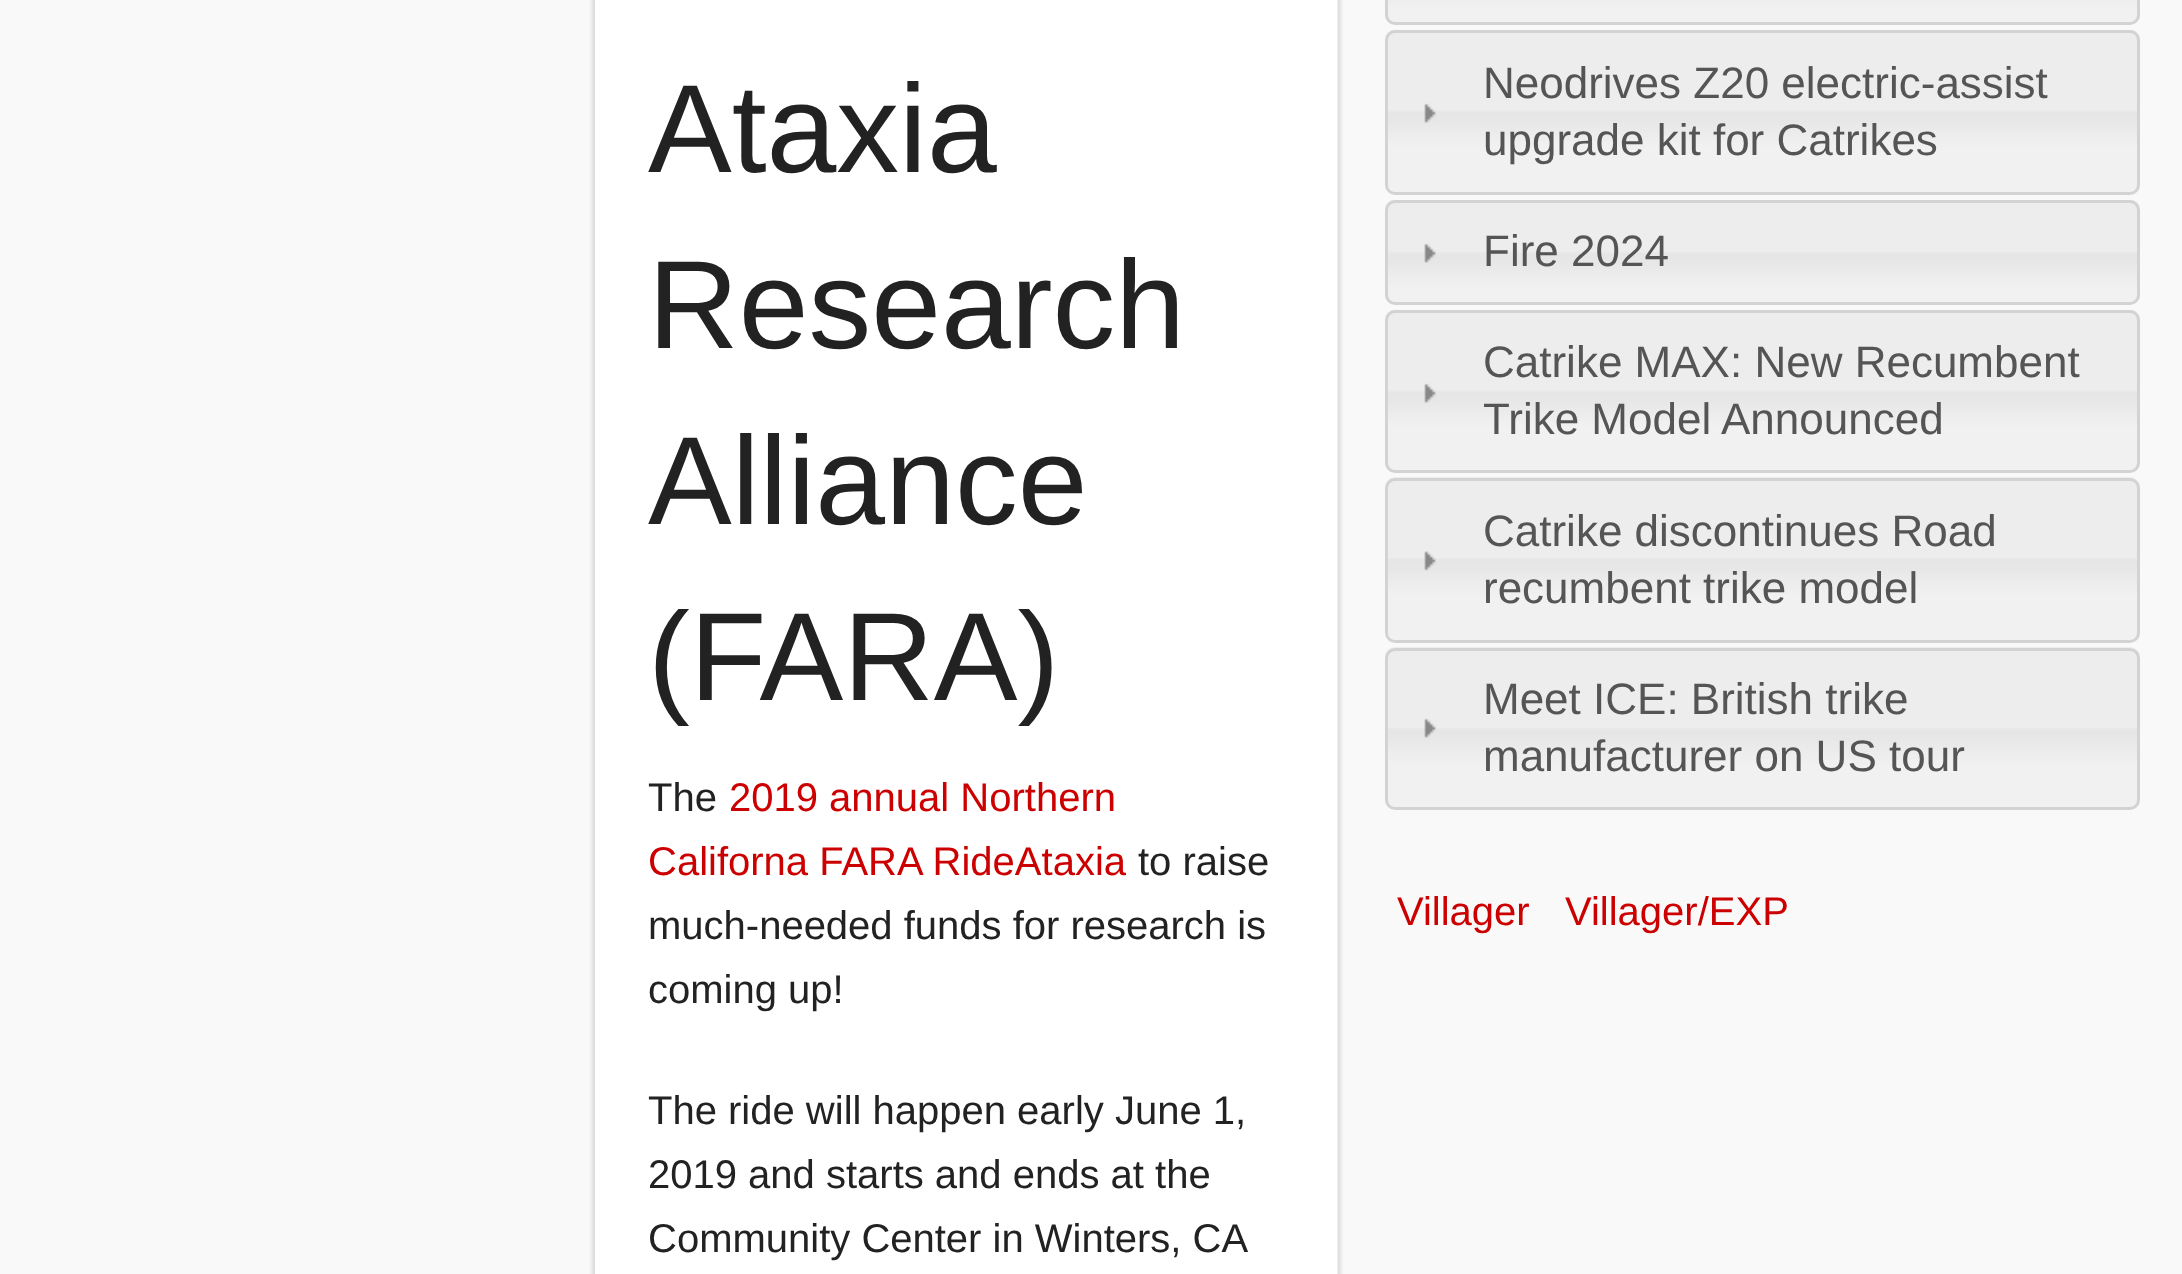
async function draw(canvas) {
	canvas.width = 2182;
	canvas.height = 1274;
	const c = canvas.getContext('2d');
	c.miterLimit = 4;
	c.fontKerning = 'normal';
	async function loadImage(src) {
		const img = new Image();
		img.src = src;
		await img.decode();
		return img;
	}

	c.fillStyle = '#f9f9f9';
	c.fillRect(0, 0, 2182, 1274);
	c.fillStyle = '#fff';
	c.fillRect(595, 0, 743, 1274);
	c.drawImage(await loadImage('img1.png'), 588, 0, 7, 1274);
	c.drawImage(await loadImage('img2.png'), 1337, 0, 8, 1274);
	c.font = '125.5px Liberation Sans';
	c.fillStyle = '#222';
	for (const [text, x, y] of [
		['Ataxia', 648, 172],
		['Research', 648, 348],
		['Alliance', 648, 524],
		['(FARA)', 648, 700],
	]) {
		c.fillText(text, x, y);
	}
	c.font = '40px Liberation Sans';
	c.fillText('The', 648, 811);
	c.fillStyle = '#c00';
	c.fillText('2019 annual Northern', 729, 811);
	c.fillText('Californa FARA RideAtaxia', 648, 875);
	c.fillStyle = '#222';
	for (const [text, x, y] of [
		['to raise', 1138, 875],
		['much-needed funds for research is', 648, 939],
		['coming up!', 648, 1003],
		['The ride will happen early June 1,', 648, 1124],
		['2019 and starts and ends at the', 648, 1188],
		['Community Center in Winters, CA', 648, 1252],
	]) {
		c.fillText(text, x, y);
	}
	c.drawImage(await loadImage('img3.png'), 1385, 0, 755, 24);
	c.beginPath();
	c.roundRect(1386.5, -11.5, 752, 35, 8.5);
	c.strokeStyle = '#d3d3d3';
	c.lineWidth = 3;
	c.stroke();
	c.drawImage(await loadImage('img4.png'), 1385, 30, 755, 164);
	c.beginPath();
	c.roundRect(1386.5, 31.5, 752, 162, 8.5);
	c.stroke();
	c.font = '44px Liberation Sans';
	c.fillStyle = '#555';
	c.fillText('Neodrives Z20 electric-assist', 1483, 98);
	c.drawImage(await loadImage('img5.png'), 1424, 103, 12, 20);
	c.fillText('upgrade kit for Catrikes', 1483, 155);
	c.drawImage(await loadImage('img6.png'), 1385, 200, 755, 104);
	c.beginPath();
	c.roundRect(1386.5, 201.5, 752, 102, 8.5);
	c.stroke();
	c.drawImage(await loadImage('img7.png'), 1424, 243, 12, 20);
	c.fillText('Fire 2024', 1483, 266);
	c.drawImage(await loadImage('img8.png'), 1385, 310, 755, 160);
	c.beginPath();
	c.roundRect(1386.5, 311.5, 752, 160, 8.5);
	c.stroke();
	c.fillText('Catrike MAX: New Recumbent', 1483, 377);
	c.drawImage(await loadImage('img5.png'), 1424, 383, 12, 20);
	c.fillText('Trike Model Announced', 1483, 434);
	c.drawImage(await loadImage('img9.png'), 1385, 477, 755, 163);
	c.beginPath();
	c.roundRect(1386.5, 479.5, 752, 162, 8.5);
	c.stroke();
	c.fillText('Catrike discontinues Road', 1483, 546);
	c.drawImage(await loadImage('img10.png'), 1424, 551, 12, 20);
	c.fillText('recumbent trike model', 1483, 603);
	c.drawImage(await loadImage('img11.png'), 1385, 647, 755, 162);
	c.beginPath();
	c.roundRect(1386.5, 649.5, 752, 159, 8.5);
	c.stroke();
	c.fillText('Meet ICE: British trike', 1483, 714);
	c.drawImage(await loadImage('img12.png'), 1424, 718, 12, 20);
	c.fillText('manufacturer on US tour', 1483, 771);
	c.font = '40px Liberation Sans';
	c.fillStyle = '#c00';
	c.fillText('Villager', 1397, 925);
	c.fillText('Villager/EXP', 1565, 925);
}

draw(document.querySelector('canvas'));
